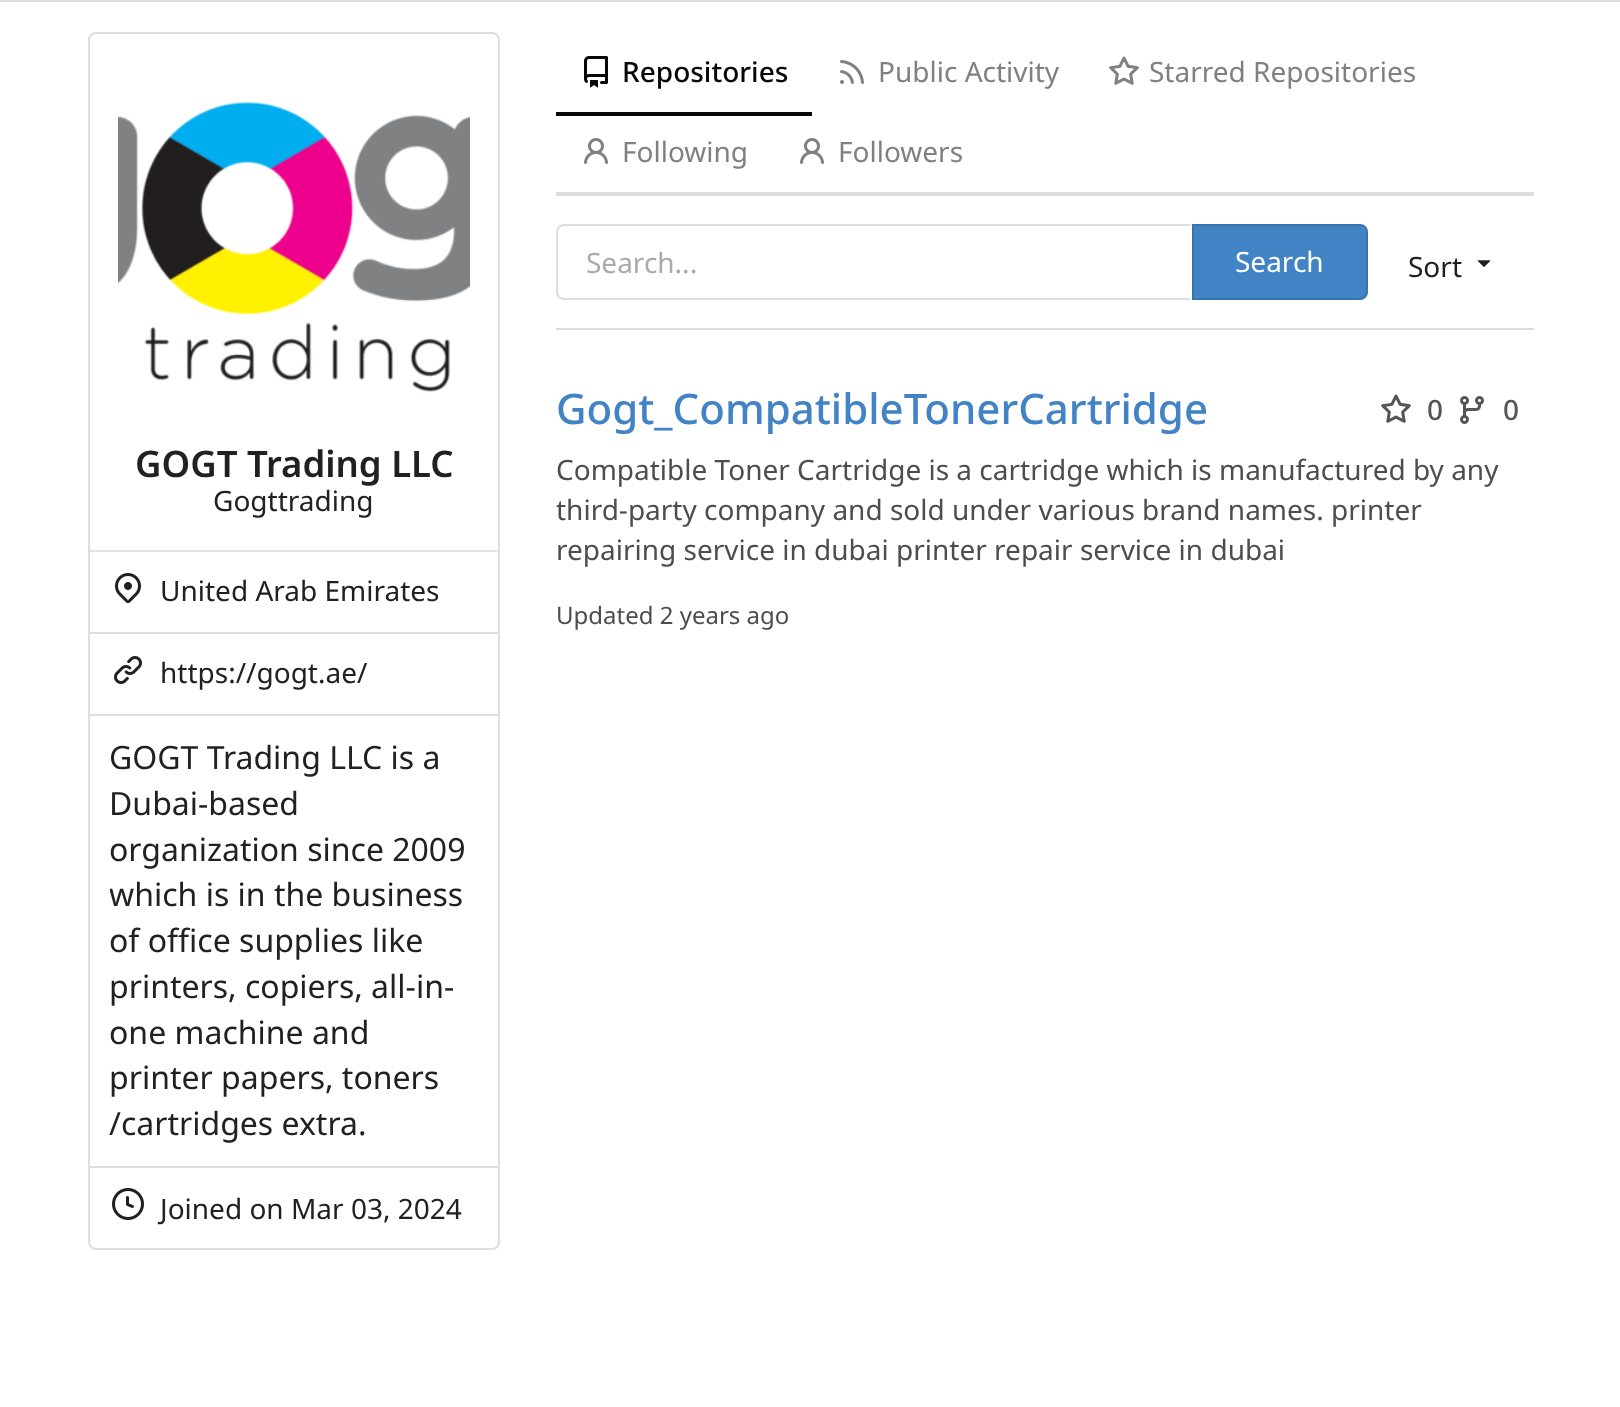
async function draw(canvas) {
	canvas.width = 1620;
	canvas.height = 1407;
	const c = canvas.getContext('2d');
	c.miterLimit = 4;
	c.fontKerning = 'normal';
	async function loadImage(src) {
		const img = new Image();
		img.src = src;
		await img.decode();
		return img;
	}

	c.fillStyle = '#fff';
	c.fillRect(0, 0, 1620, 1407);
	for (const [x, y, w, h, color] of [
		[0, 0, 1620, 2, '#dedede'],
		[556, 192, 978, 4, '#dedede'],
		[556, 112, 256, 4, '#080808'],
	]) {
		c.fillStyle = color;
		c.fillRect(x, y, w, h);
	}
	c.drawImage(await loadImage('img1.png'), 584, 56, 24, 32);
	c.font = '500 28px Noto Sans';
	c.fillText('Repositories', 622, 82);
	c.drawImage(await loadImage('img2.png'), 840, 60, 24, 24);
	c.font = '28px Noto Sans';
	c.fillStyle = '#808080';
	c.fillText('Public Activity', 878, 82);
	c.drawImage(await loadImage('img3.png'), 1109, 56, 30, 29);
	c.fillText('Starred Repositories', 1149, 82);
	c.drawImage(await loadImage('img4.png'), 584, 138, 24, 26);
	c.fillText('Following', 622, 162);
	c.drawImage(await loadImage('img4.png'), 800, 138, 24, 26);
	c.fillText('Followers', 838, 162);
	c.fillStyle = '#dedede';
	c.beginPath();
	c.moveTo(564, 224);
	c.bezierCurveTo(562, 224, 560, 225, 558, 226);
	c.lineTo(560, 228);
	c.bezierCurveTo(561, 227, 562, 226, 564, 226);
	c.lineTo(1190, 226);
	c.lineTo(1192, 224);
	c.closePath();
	c.fill();
	c.beginPath();
	c.moveTo(1192, 300);
	c.lineTo(1190, 298);
	c.lineTo(564, 298);
	c.bezierCurveTo(562, 298, 561, 297, 560, 296);
	c.lineTo(558, 298);
	c.bezierCurveTo(560, 299, 562, 300, 564, 300);
	c.closePath();
	c.fill();
	c.beginPath();
	c.moveTo(556, 232);
	c.lineTo(556, 292);
	c.bezierCurveTo(556, 294, 557, 296, 558, 298);
	c.lineTo(560, 296);
	c.bezierCurveTo(559, 295, 558, 294, 558, 292);
	c.lineTo(558, 232);
	c.bezierCurveTo(558, 230, 559, 229, 560, 228);
	c.lineTo(558, 226);
	c.bezierCurveTo(557, 228, 556, 230, 556, 232);
	c.closePath();
	c.fill();
	c.fillStyle = '#aaa';
	c.fillText('Search...', 586, 273);
	c.fillStyle = '#4183c4';
	c.beginPath();
	c.roundRect(1192, 224, 176, 76, [0, 8, 8, 0]);
	c.fill();
	c.beginPath();
	c.roundRect(1193, 225, 174, 74, [0, 7, 7, 0]);
	c.strokeStyle = '#0000001c';
	c.lineWidth = 2;
	c.stroke();
	c.fillStyle = '#fff';
	c.fillText('Search', 1235, 272);
	c.fillStyle = '#212121';
	c.fillText('Sort', 1408, 277);
	c.drawImage(await loadImage('img5.png'), 1477, 260, 14, 7);
	c.fillStyle = '#dedede';
	c.fillRect(556, 328, 978, 2);
	c.font = '500 42px Noto Sans';
	c.fillStyle = '#4183c4';
	c.fillText('Gogt_CompatibleTonerCartridge', 556, 424);
	c.drawImage(await loadImage('img6.png'), 1381, 394, 30, 29);
	c.font = '500 28px Noto Sans';
	c.fillStyle = '#555';
	c.fillText('0', 1427, 420);
	c.drawImage(await loadImage('img7.png'), 1460, 396, 24, 28);
	c.fillText('0', 1503, 420);
	c.font = '28px Noto Sans';
	c.fillStyle = '#4d4d4d';
	for (const [text, x, y] of [
		['Compatible Toner Cartridge is a cartridge which is manufactured by any', 556, 480],
		['third-party company and sold under various brand names. printer', 556, 520],
		['repairing service in dubai printer repair service in dubai', 556, 560],
	]) {
		c.fillText(text, x, y);
	}
	c.font = '24px Noto Sans';
	c.fillText('Updated 2 years ago', 556, 624);
	c.beginPath();
	c.roundRect(89, 33, 410, 1216, 7);
	c.strokeStyle = '#dedede';
	c.stroke();
	c.drawImage(await loadImage('img8.png'), 118, 102, 352, 290);
	c.font = '600 36.5px Noto Sans';
	c.fillStyle = '#212121';
	c.fillText('GOGT Trading LLC', 135, 477);
	c.font = '28px Noto Sans';
	c.fillText('Gogttrading', 213, 511);
	c.fillStyle = '#e5e5e5';
	c.fillRect(90, 550, 408, 2);
	c.fillStyle = '#dedede';
	c.fillRect(90, 632, 408, 2);
	c.drawImage(await loadImage('img9.png'), 115, 573, 26, 31);
	c.fillStyle = '#212121';
	c.fillText('United Arab Emirates', 160, 601);
	c.fillStyle = '#dedede';
	c.fillRect(90, 714, 408, 2);
	c.drawImage(await loadImage('img10.png'), 114, 656, 28, 28);
	c.fillStyle = '#212121';
	c.fillText('https://gogt.ae/', 160, 683);
	c.fillStyle = '#dedede';
	c.fillRect(90, 1166, 408, 2);
	c.font = '32px Noto Sans';
	c.fillStyle = '#212121';
	for (const [text, x, y] of [
		['GOGT Trading LLC is a', 109, 769],
		['Dubai-based', 109, 815],
		['organization since 2009', 109, 861],
	]) {
		c.fillText(text, x, y);
	}
	c.save();
	c.beginPath();
	c.rect(110, 736, 368, 410);
	c.clip();
	c.fillText('which is in the business', 109, 906);
	c.restore();
	for (const [text, x, y] of [
		['of office supplies like', 109, 952],
		['printers, copiers, all-in-', 109, 998],
		['one machine and', 109, 1044],
		['printer papers, toners', 109, 1089],
		['/cartridges extra.', 109, 1135],
	]) {
		c.fillText(text, x, y);
	}
	c.drawImage(await loadImage('img11.png'), 112, 1188, 32, 32);
	c.font = '28px Noto Sans';
	c.fillText('Joined on Mar 03, 2024', 160, 1219);
}

draw(document.querySelector('canvas'));
